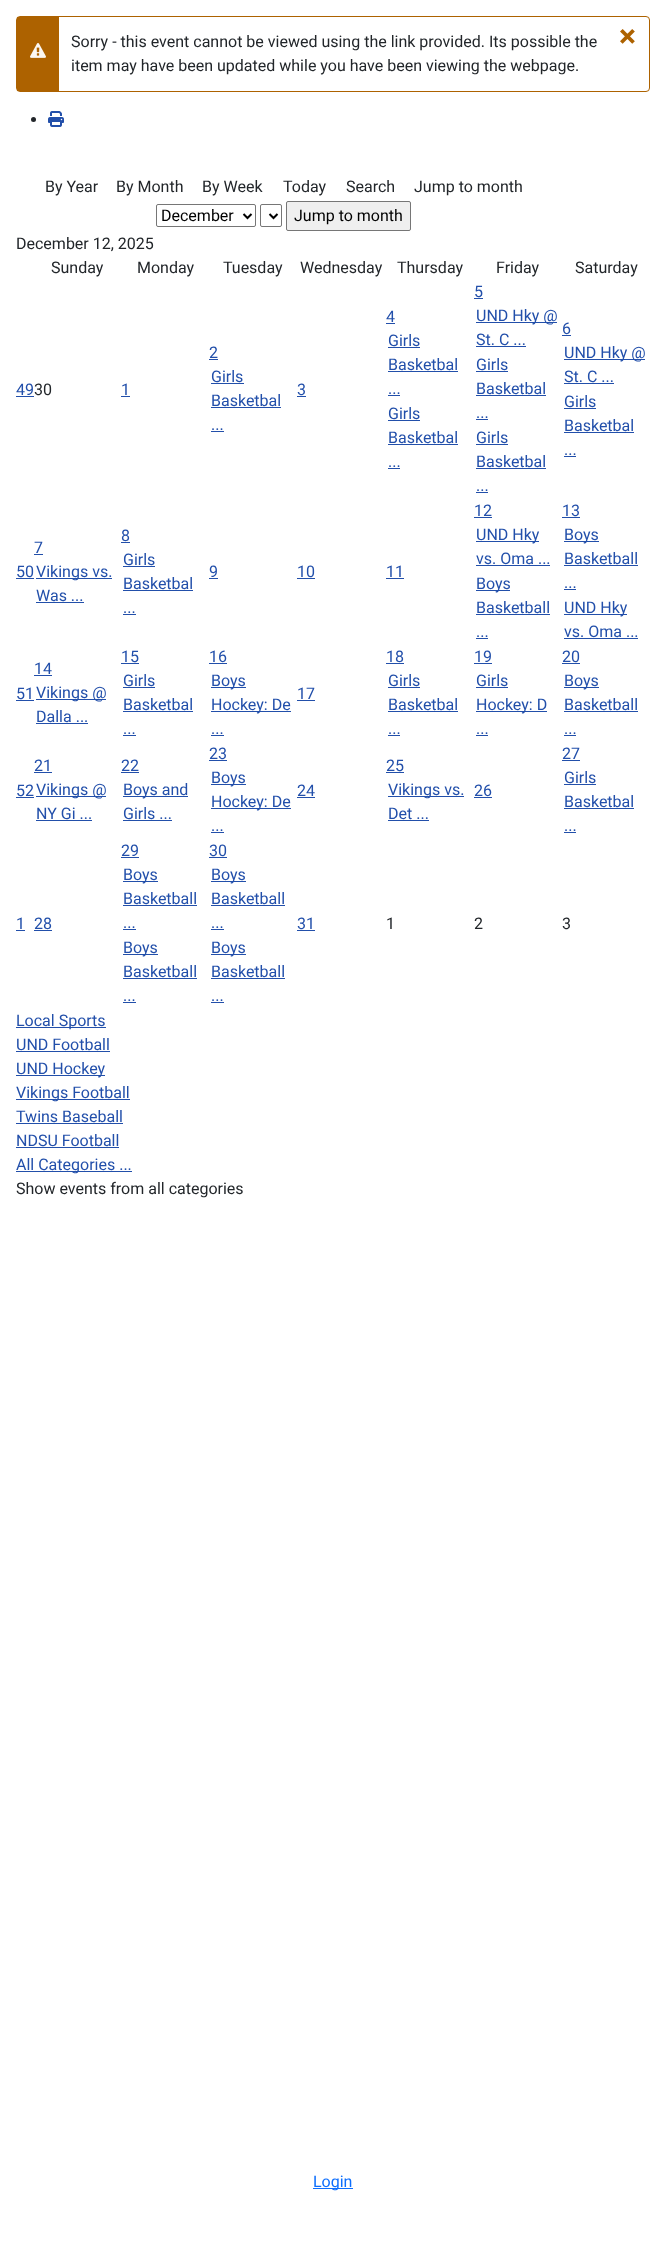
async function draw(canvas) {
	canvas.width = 666;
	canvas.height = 2250;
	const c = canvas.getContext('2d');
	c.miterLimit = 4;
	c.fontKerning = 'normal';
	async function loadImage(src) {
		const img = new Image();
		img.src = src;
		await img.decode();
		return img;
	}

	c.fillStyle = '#fff';
	c.fillRect(0, 0, 666, 2250);
	c.beginPath();
	c.roundRect(16.5, 16.5, 633, 75, 3.5);
	c.strokeStyle = '#ad6200';
	c.stroke();
	c.fillStyle = '#ad6200';
	c.fillRect(17, 17, 42, 74);
	c.drawImage(await loadImage('img1.png'), 30, 43, 16, 15);
	c.font = '16px Roboto';
	c.fillStyle = '#22262a';
	c.fillText('Sorry - this event cannot be viewed using the link provided. Its possible the', 71, 47);
	c.fillText('item may have been updated while you have been viewing the webpage.', 71, 71);
	c.font = 'bold 32px Roboto';
	c.fillStyle = '#ad6200';
	c.fillText('×', 619, 47);
	c.fillStyle = '#22262a';
	c.beginPath();
	c.arc(33.5, 119.5, 2.5, 0, 2 * Math.PI);
	c.fill();
	c.drawImage(await loadImage('img2.png'), 48, 111, 16, 16);
	c.font = '16px Roboto';
	for (const [text, x, y] of [
		['By Year', 45, 192],
		['By Month', 116, 192],
		['By Week', 202, 192],
		['Today', 283, 192],
		['Search', 346, 192],
		['Jump to month', 414, 192],
	]) {
		c.fillText(text, x, y);
	}
	c.beginPath();
	c.roundRect(156.5, 204.5, 99, 22, 1.5);
	c.strokeStyle = '#767676';
	c.stroke();
	c.beginPath();
	c.moveTo(243.5, 214);
	c.lineTo(247.5, 218);
	c.lineTo(251.5, 214);
	c.strokeStyle = '#000';
	c.lineWidth = 2;
	c.stroke();
	c.fillStyle = '#000';
	c.fillText('December', 161, 221);
	c.beginPath();
	c.roundRect(260.5, 204.5, 21, 22, 1.5);
	c.strokeStyle = '#767676';
	c.lineWidth = 1;
	c.stroke();
	c.beginPath();
	c.moveTo(269.5, 214);
	c.lineTo(273.5, 218);
	c.lineTo(277.5, 214);
	c.strokeStyle = '#000';
	c.lineWidth = 2;
	c.stroke();
	c.fillStyle = '#efefef';
	c.beginPath();
	c.roundRect(286.5, 201.5, 124, 29, 1.5);
	c.fill();
	c.strokeStyle = '#767676';
	c.lineWidth = 1;
	c.stroke();
	c.fillStyle = '#000';
	c.fillText('Jump to month', 294, 221);
	c.fillStyle = '#22262a';
	for (const [text, x, y] of [
		['December 12, 2025', 16, 249],
		['Sunday', 51, 273],
		['Monday', 137, 273],
		['Tuesday', 223, 273],
		['Wednesday', 300, 273],
		['Thursday', 397, 273],
		['Friday', 496, 273],
		['Saturday', 575, 273],
	]) {
		c.fillText(text, x, y);
	}
	c.fillStyle = '#224faa';
	c.fillText('49', 16, 395);
	c.fillRect(16, 396, 18, 1);
	c.fillStyle = '#22262a';
	c.fillText('30', 34, 395);
	c.fillStyle = '#224faa';
	c.fillText('1', 121, 395);
	c.fillRect(121, 396, 9, 1);
	c.fillText('2', 209, 358);
	c.fillRect(209, 359, 9, 1);
	c.fillText('Girls', 211, 382);
	c.fillRect(211, 383, 33, 1);
	c.fillText('Basketbal', 211, 406);
	c.fillRect(211, 407, 70, 1);
	c.fillText('...', 211, 430);
	c.fillRect(211, 431, 13, 1);
	c.fillText('3', 297, 395);
	c.fillRect(297, 396, 9, 1);
	c.fillText('4', 386, 322);
	c.fillRect(386, 323, 9, 1);
	c.fillText('Girls', 388, 346);
	c.fillRect(388, 347, 32, 1);
	c.fillText('Basketbal', 388, 370);
	c.fillRect(388, 371, 70, 1);
	c.fillText('...', 388, 394);
	c.fillRect(388, 395, 12, 1);
	c.fillText('Girls', 388, 419);
	c.fillRect(388, 420, 32, 1);
	c.fillText('Basketbal', 388, 443);
	c.fillRect(388, 444, 70, 1);
	c.fillText('...', 388, 467);
	c.fillRect(388, 468, 12, 1);
	c.fillText('5', 474, 297);
	c.fillRect(474, 298, 9, 1);
	c.fillRect(476, 322, 81, 1);
	c.fillText('UND Hky @', 476, 321);
	c.fillText('St. C ...', 476, 345);
	c.fillRect(476, 346, 50, 1);
	c.fillText('Girls', 476, 370);
	c.fillRect(476, 371, 32, 1);
	c.fillText('Basketbal', 476, 394);
	c.fillRect(476, 395, 70, 1);
	c.fillText('...', 476, 418);
	c.fillRect(476, 419, 12, 1);
	c.fillText('Girls', 476, 443);
	c.fillRect(476, 444, 32, 1);
	c.fillText('Basketbal', 476, 467);
	c.fillRect(476, 468, 70, 1);
	c.fillText('...', 476, 491);
	c.fillRect(476, 492, 12, 1);
	c.fillText('6', 562, 334);
	c.fillRect(562, 335, 9, 1);
	c.fillRect(564, 359, 81, 1);
	c.fillText('UND Hky @', 564, 358);
	c.fillText('St. C ...', 564, 382);
	c.fillRect(564, 383, 50, 1);
	c.fillText('Girls', 564, 407);
	c.fillRect(564, 408, 32, 1);
	c.fillText('Basketbal', 564, 431);
	c.fillRect(564, 432, 70, 1);
	c.fillText('...', 564, 455);
	c.fillRect(564, 456, 12, 1);
	c.fillText('50', 16, 577);
	c.fillRect(16, 578, 18, 1);
	c.fillText('7', 34, 553);
	c.fillRect(34, 554, 9, 1);
	c.fillRect(36, 578, 76, 1);
	c.fillText('Vikings vs.', 36, 577);
	c.fillText('Was ...', 36, 601);
	c.fillRect(36, 602, 48, 1);
	c.fillText('8', 121, 541);
	c.fillRect(121, 542, 9, 1);
	c.fillText('Girls', 123, 565);
	c.fillRect(123, 566, 32, 1);
	c.fillText('Basketbal', 123, 589);
	c.fillRect(123, 590, 70, 1);
	c.fillText('...', 123, 613);
	c.fillRect(123, 614, 13, 1);
	c.fillText('9', 209, 577);
	c.fillRect(209, 578, 9, 1);
	c.fillText('10', 297, 577);
	c.fillRect(297, 578, 18, 1);
	c.fillText('11', 386, 577);
	c.fillRect(386, 578, 18, 1);
	c.fillText('12', 474, 516);
	c.fillRect(474, 517, 18, 1);
	c.fillRect(476, 541, 63, 1);
	c.fillText('UND Hky', 476, 540);
	c.fillText('vs. Oma ...', 476, 564);
	c.fillRect(476, 565, 74, 1);
	c.fillRect(476, 590, 34, 1);
	c.fillText('Boys', 476, 589);
	c.fillText('Basketball', 476, 613);
	c.fillRect(476, 614, 74, 1);
	c.fillText('...', 476, 637);
	c.fillRect(476, 638, 12, 1);
	c.fillText('13', 562, 516);
	c.fillRect(562, 517, 18, 1);
	c.fillRect(564, 541, 35, 1);
	c.fillText('Boys', 564, 540);
	c.fillText('Basketball', 564, 564);
	c.fillRect(564, 565, 74, 1);
	c.fillText('...', 564, 588);
	c.fillRect(564, 589, 12, 1);
	c.fillRect(564, 614, 63, 1);
	c.fillText('UND Hky', 564, 613);
	c.fillText('vs. Oma ...', 564, 637);
	c.fillRect(564, 638, 74, 1);
	c.fillText('51', 16, 699);
	c.fillRect(16, 700, 18, 1);
	c.fillText('14', 34, 674);
	c.fillRect(34, 675, 18, 1);
	c.fillRect(36, 699, 70, 1);
	c.fillText('Vikings @', 36, 698);
	c.fillText('Dalla ...', 36, 722);
	c.fillRect(36, 723, 52, 1);
	c.fillText('15', 121, 662);
	c.fillRect(121, 663, 18, 1);
	c.fillText('Girls', 123, 686);
	c.fillRect(123, 687, 32, 1);
	c.fillText('Basketbal', 123, 710);
	c.fillRect(123, 711, 70, 1);
	c.fillText('...', 123, 734);
	c.fillRect(123, 735, 13, 1);
	c.fillText('16', 209, 662);
	c.fillRect(209, 663, 18, 1);
	c.fillRect(211, 687, 35, 1);
	c.fillText('Boys', 211, 686);
	c.fillRect(211, 711, 80, 1);
	c.fillText('Hockey: De', 211, 710);
	c.fillText('...', 211, 734);
	c.fillRect(211, 735, 13, 1);
	c.fillText('17', 297, 699);
	c.fillRect(297, 700, 18, 1);
	c.fillText('18', 386, 662);
	c.fillRect(386, 663, 18, 1);
	c.fillText('Girls', 388, 686);
	c.fillRect(388, 687, 32, 1);
	c.fillText('Basketbal', 388, 710);
	c.fillRect(388, 711, 70, 1);
	c.fillText('...', 388, 734);
	c.fillRect(388, 735, 12, 1);
	c.fillText('19', 474, 662);
	c.fillRect(474, 663, 18, 1);
	c.fillText('Girls', 476, 686);
	c.fillRect(476, 687, 32, 1);
	c.fillRect(476, 711, 71, 1);
	c.fillText('Hockey: D', 476, 710);
	c.fillText('...', 476, 734);
	c.fillRect(476, 735, 12, 1);
	c.fillText('20', 562, 662);
	c.fillRect(562, 663, 18, 1);
	c.fillRect(564, 687, 35, 1);
	c.fillText('Boys', 564, 686);
	c.fillText('Basketball', 564, 710);
	c.fillRect(564, 711, 74, 1);
	c.fillText('...', 564, 734);
	c.fillRect(564, 735, 12, 1);
	c.fillText('52', 16, 796);
	c.fillRect(16, 797, 18, 1);
	c.fillText('21', 34, 771);
	c.fillRect(34, 772, 18, 1);
	c.fillRect(36, 796, 70, 1);
	c.fillText('Vikings @', 36, 795);
	c.fillText('NY Gi ...', 36, 819);
	c.fillRect(36, 820, 56, 1);
	c.fillText('22', 121, 771);
	c.fillRect(121, 772, 18, 1);
	c.fillRect(123, 796, 65, 1);
	c.fillText('Boys and', 123, 795);
	c.fillText('Girls ...', 123, 819);
	c.fillRect(123, 820, 49, 1);
	c.fillText('23', 209, 759);
	c.fillRect(209, 760, 18, 1);
	c.fillRect(211, 784, 35, 1);
	c.fillText('Boys', 211, 783);
	c.fillRect(211, 808, 80, 1);
	c.fillText('Hockey: De', 211, 807);
	c.fillText('...', 211, 831);
	c.fillRect(211, 832, 13, 1);
	c.fillText('24', 297, 796);
	c.fillRect(297, 797, 18, 1);
	c.fillText('25', 386, 771);
	c.fillRect(386, 772, 18, 1);
	c.fillRect(388, 796, 76, 1);
	c.fillText('Vikings vs.', 388, 795);
	c.fillText('Det ...', 388, 819);
	c.fillRect(388, 820, 41, 1);
	c.fillText('26', 474, 796);
	c.fillRect(474, 797, 18, 1);
	c.fillText('27', 562, 759);
	c.fillRect(562, 760, 18, 1);
	c.fillText('Girls', 564, 783);
	c.fillRect(564, 784, 32, 1);
	c.fillText('Basketbal', 564, 807);
	c.fillRect(564, 808, 70, 1);
	c.fillText('...', 564, 831);
	c.fillRect(564, 832, 12, 1);
	c.fillText('1', 16, 929);
	c.fillRect(16, 930, 9, 1);
	c.fillText('28', 34, 929);
	c.fillRect(34, 930, 18, 1);
	c.fillText('29', 121, 856);
	c.fillRect(121, 857, 18, 1);
	c.fillRect(123, 881, 35, 1);
	c.fillText('Boys', 123, 880);
	c.fillText('Basketball', 123, 904);
	c.fillRect(123, 905, 74, 1);
	c.fillText('...', 123, 928);
	c.fillRect(123, 929, 13, 1);
	c.fillRect(123, 954, 35, 1);
	c.fillText('Boys', 123, 953);
	c.fillText('Basketball', 123, 977);
	c.fillRect(123, 978, 74, 1);
	c.fillText('...', 123, 1001);
	c.fillRect(123, 1002, 13, 1);
	c.fillText('30', 209, 856);
	c.fillRect(209, 857, 18, 1);
	c.fillRect(211, 881, 35, 1);
	c.fillText('Boys', 211, 880);
	c.fillText('Basketball', 211, 904);
	c.fillRect(211, 905, 74, 1);
	c.fillText('...', 211, 928);
	c.fillRect(211, 929, 13, 1);
	c.fillRect(211, 954, 35, 1);
	c.fillText('Boys', 211, 953);
	c.fillText('Basketball', 211, 977);
	c.fillRect(211, 978, 74, 1);
	c.fillText('...', 211, 1001);
	c.fillRect(211, 1002, 13, 1);
	c.fillText('31', 297, 929);
	c.fillRect(297, 930, 18, 1);
	c.fillStyle = '#22262a';
	for (const [text, x, y] of [
		['1', 386, 929],
		['2', 474, 929],
		['3', 562, 929],
	]) {
		c.fillText(text, x, y);
	}
	c.fillStyle = '#224faa';
	c.fillRect(16, 1027, 90, 1);
	c.fillText('Local Sports', 16, 1026);
	c.fillText('UND Football', 16, 1050);
	c.fillRect(16, 1051, 94, 1);
	c.fillRect(16, 1075, 89, 1);
	c.fillText('UND Hockey', 16, 1074);
	c.fillRect(16, 1099, 114, 1);
	c.fillText('Vikings Football', 16, 1098);
	c.fillText('Twins Baseball', 16, 1122);
	c.fillRect(16, 1123, 107, 1);
	c.fillText('NDSU Football', 16, 1146);
	c.fillRect(16, 1147, 103, 1);
	c.fillRect(16, 1171, 116, 1);
	c.fillText('All Categories ...', 16, 1170);
	c.fillStyle = '#22262a';
	c.fillText('Show events from all categories', 16, 1194);
	c.fillStyle = '#0d6efd';
	c.fillRect(313, 2188, 40, 1);
	c.fillText('Login', 313, 2187);
}

draw(document.querySelector('canvas'));
